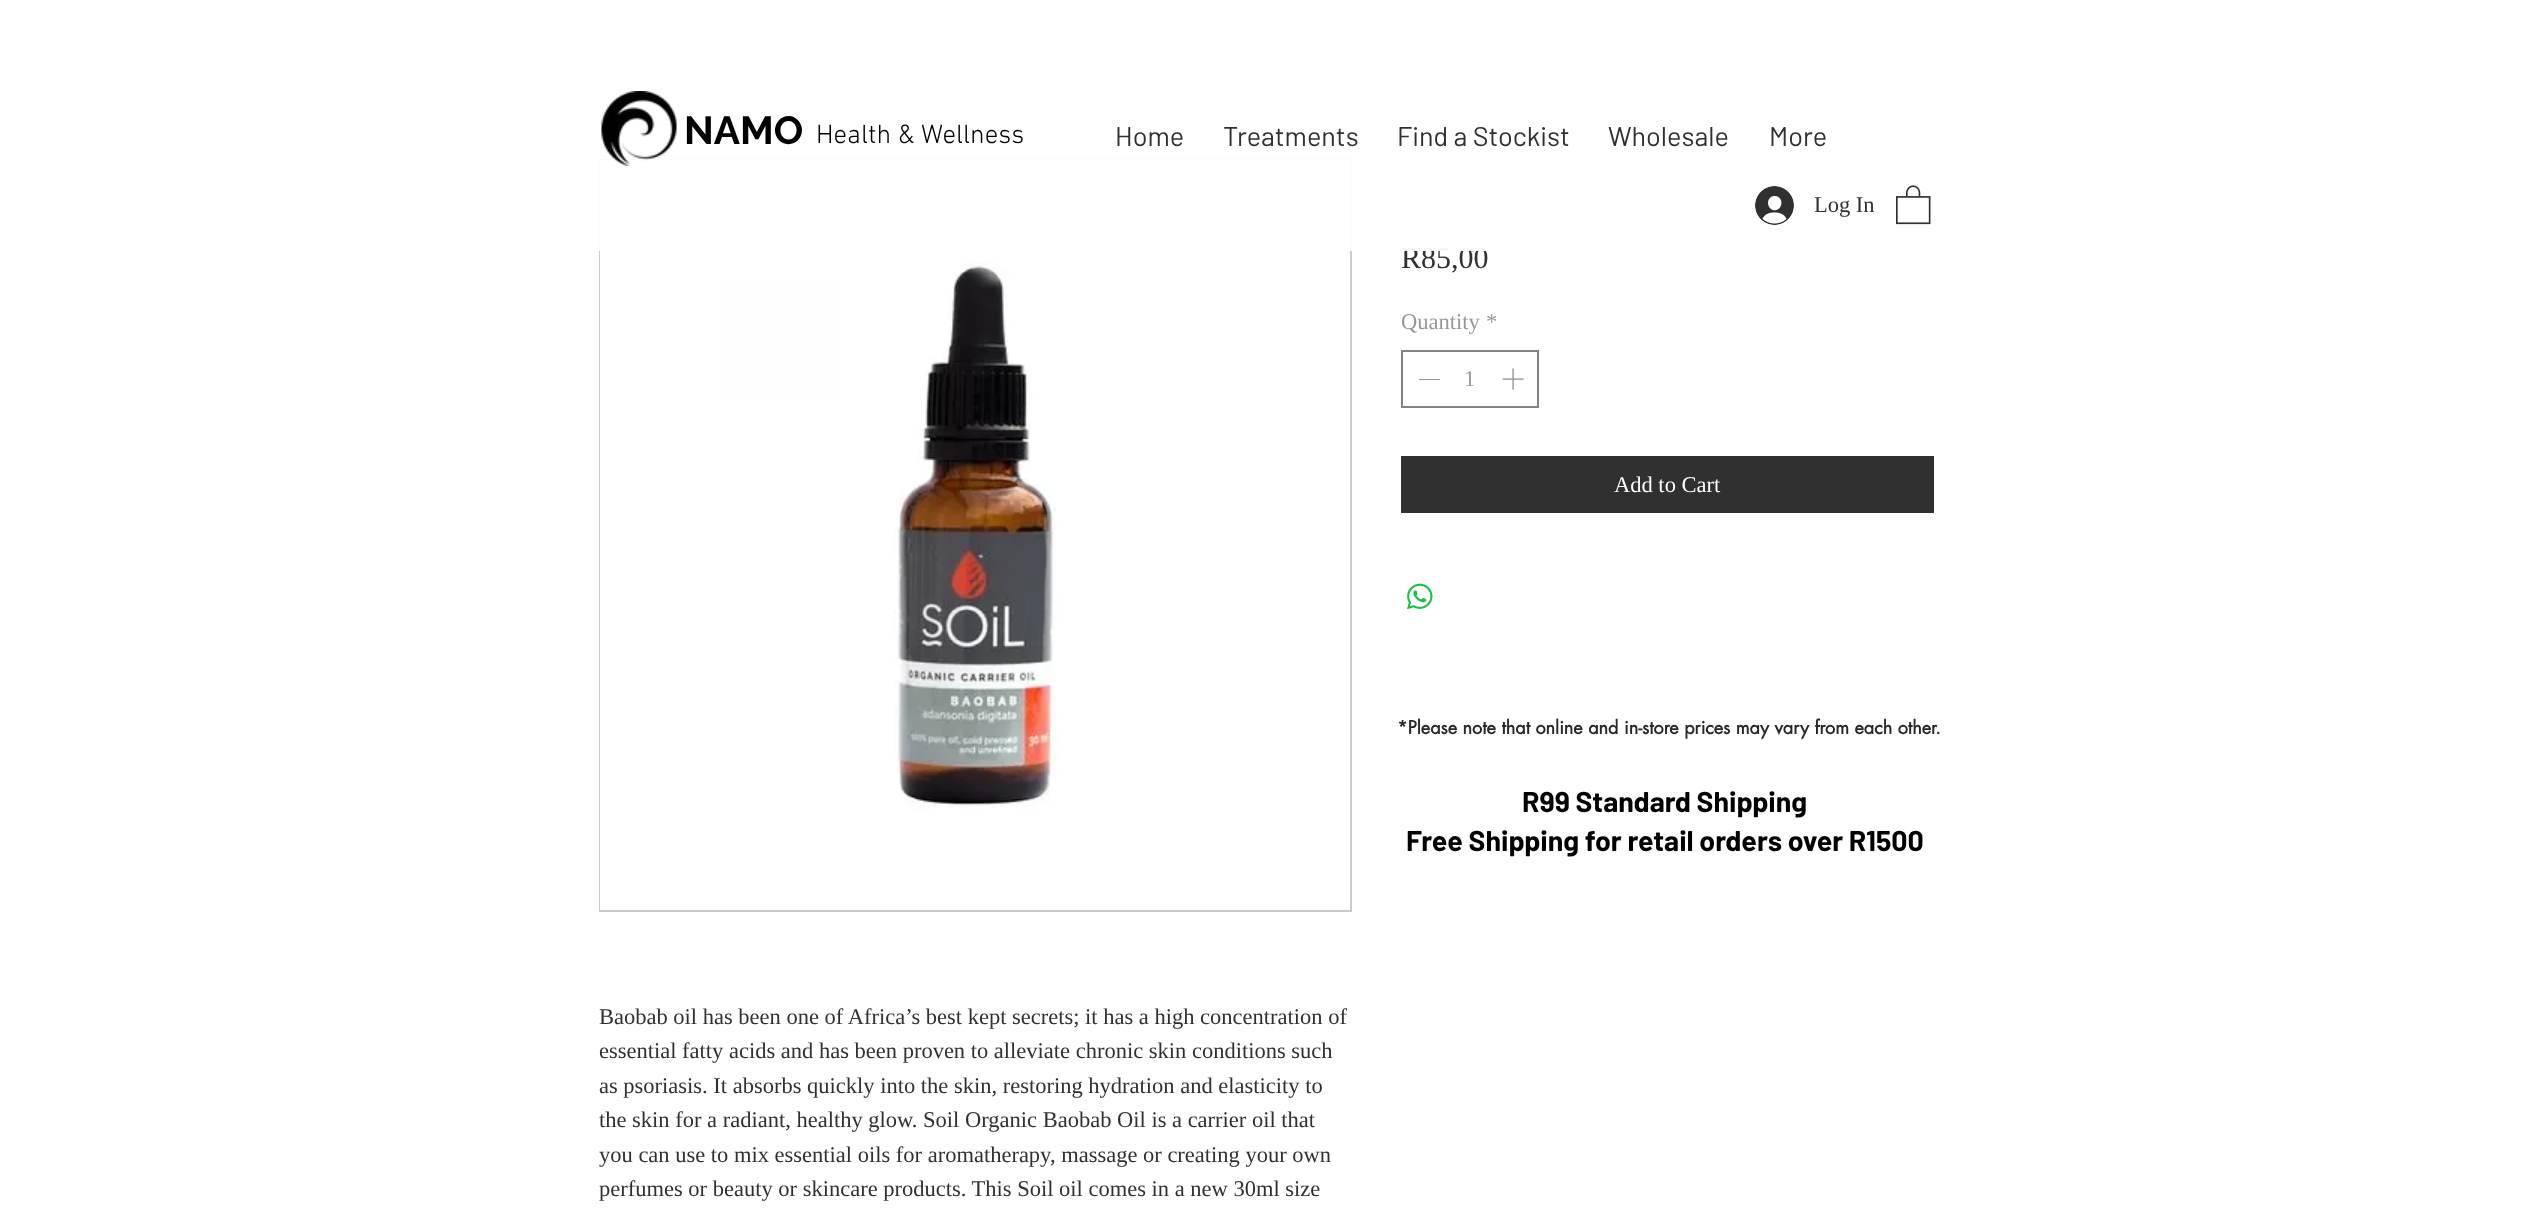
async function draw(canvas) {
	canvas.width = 2532;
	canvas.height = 1210;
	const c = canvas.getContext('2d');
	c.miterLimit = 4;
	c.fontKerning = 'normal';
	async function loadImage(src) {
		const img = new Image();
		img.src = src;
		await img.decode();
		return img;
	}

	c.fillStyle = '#fff';
	c.fillRect(0, 0, 2532, 1210);
	c.font = '30px Liberation Serif';
	c.fillStyle = '#303030';
	c.fillText('R85,00', 1401, 268);
	c.strokeStyle = '#cbcbcb';
	c.lineWidth = 2;
	c.strokeRect(600, 160, 751, 751);
	c.drawImage(await loadImage('img6.png'), 600, 160, 750, 750);
	c.fillStyle = '#ffffffdb';
	c.fillRect(599, 159, 887, 92);
	c.fillStyle = '#ffffff87';
	c.fillRect(599, 159, 887, 92);
	c.drawImage(await loadImage('img1.png'), 601, 91, 76, 75);
	c.font = 'bold 39px Raleway';
	c.fillStyle = '#000';
	c.fillText('NAMO', 684, 144);
	c.font = '300 27px "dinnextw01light"';
	c.fillText('Health & Wellness', 816, 143);
	c.font = '27px Barlow';
	c.fillStyle = '#303030';
	for (const [text, x, y] of [
		['Home', 1115, 146],
		['Treatments', 1223, 146],
		['Find a Stockist', 1397, 146],
		['Wholesale', 1608, 146],
		['More', 1769, 146],
	]) {
		c.fillText(text, x, y);
	}
	c.drawImage(await loadImage('img2.png'), 1755, 186, 39, 39);
	c.font = '22.5px Liberation Serif';
	c.fillText('Log In', 1814, 212);
	c.drawImage(await loadImage('img3.png'), 1896, 185, 35, 40);
	c.fillStyle = '#989898';
	c.fillText('Quantity', 1401, 329);
	c.fillText('*', 1486, 329);
	c.strokeStyle = '#838383';
	c.strokeRect(1402, 351, 136, 56);
	c.fillRect(1419, 379, 21, 1);
	c.fillText('1', 1464, 386);
	c.drawImage(await loadImage('img4.png'), 1502, 368, 22, 22);
	c.fillStyle = '#303030';
	c.fillRect(1401, 456, 533, 57);
	c.fillStyle = '#fff';
	c.fillText('Add to Cart', 1614, 492);
	c.drawImage(await loadImage('img5.png'), 1407, 583, 26, 27);
	c.fillStyle = '#303030';
	for (const [text, x, y] of [
		['Baobab oil has been one of Africa’s best kept secrets; it has a high concentration of', 599, 1024],
		['essential fatty acids and has been proven to alleviate chronic skin conditions such', 599, 1058],
		['as psoriasis. It absorbs quickly into the skin, restoring hydration and elasticity to', 599, 1093],
		['the skin for a radiant, healthy glow. Soil Organic Baobab Oil is a carrier oil that', 599, 1127],
		['you can use to mix essential oils for aromatherapy, massage or creating your own', 599, 1162],
		['perfumes or beauty or skincare products. This Soil oil comes in a new 30ml size', 599, 1196],
	]) {
		c.fillText(text, x, y);
	}
	c.font = 'bold 18px futura';
	c.fillStyle = '#292929';
	c.fillText('*Please note that online and in-store prices may vary from each other.', 1397, 734);
	c.font = 'bold 28.5px Barlow';
	c.fillStyle = '#000';
	c.fillText('R99 Standard Shipping', 1522, 812);
	c.fillText('Free Shipping for retail orders over R1500', 1406, 851);
}

draw(document.querySelector('canvas'));
